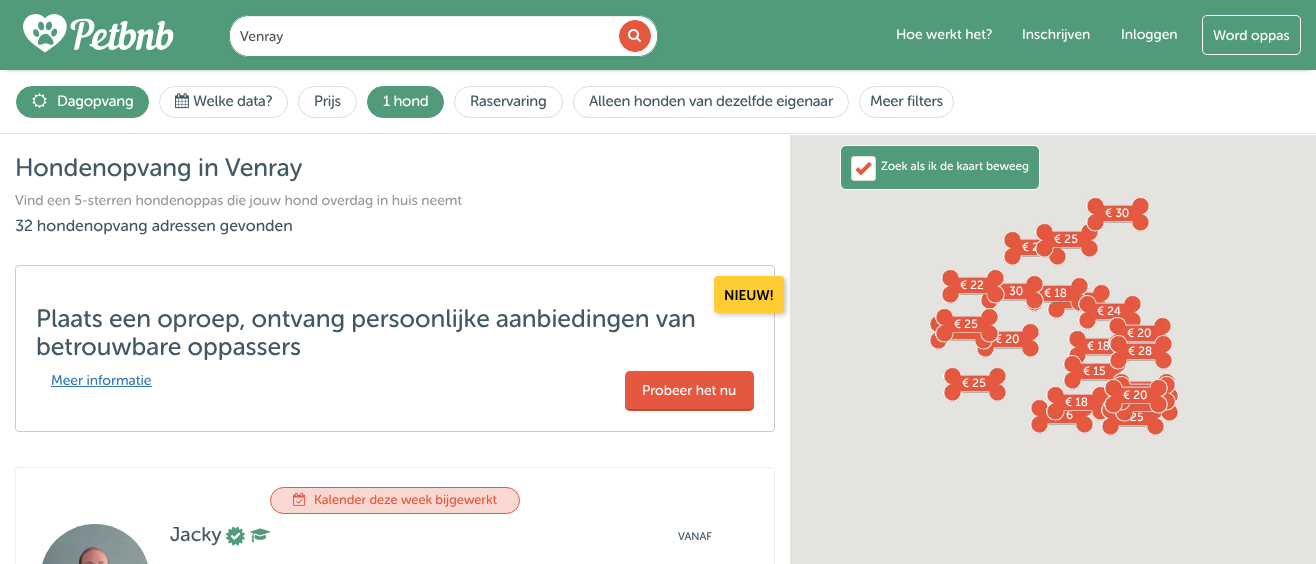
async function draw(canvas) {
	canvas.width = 1316;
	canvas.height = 564;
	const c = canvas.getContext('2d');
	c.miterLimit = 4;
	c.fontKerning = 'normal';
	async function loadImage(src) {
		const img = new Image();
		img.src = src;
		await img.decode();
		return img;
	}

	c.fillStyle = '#fff';
	c.fillRect(0, 0, 1316, 564);
	c.fillStyle = '#000000bf';
	c.filter = 'blur(2.5px)';
	c.beginPath();
	c.rect(5, 8, 1306, 60);
	c.fill();
	c.filter = 'none';
	c.fillStyle = '#519b7a';
	c.fillRect(0, 0, 1316, 70);
	c.drawImage(await loadImage('img1.png'), 23, 14, 151, 39);
	c.fillStyle = '#fff';
	c.beginPath();
	c.roundRect(229, 15, 429, 42, 20);
	c.fill();
	c.fillStyle = '#00000014';
	c.filter = 'blur(1.5px)';
	c.beginPath();
	c.roundRect(229, 16, 429, 42, 20);
	c.fill();
	c.filter = 'none';
	c.beginPath();
	c.roundRect(229.5, 15.5, 428, 41, 19.5);
	c.strokeStyle = '#519b7a';
	c.stroke();
	c.fillStyle = '#fff';
	c.beginPath();
	c.roundRect(230, 16, 427, 40, 20);
	c.fill();
	c.fillStyle = '#00000012';
	c.beginPath();
	c.moveTo(250, 17);
	c.lineTo(637, 17);
	c.bezierCurveTo(648, 17, 657, 26, 657, 37);
	c.bezierCurveTo(657, 25, 648, 16, 637, 16);
	c.lineTo(250, 16);
	c.bezierCurveTo(239, 16, 230, 25, 230, 37);
	c.bezierCurveTo(230, 26, 239, 17, 250, 17);
	c.closePath();
	c.fill();
	c.font = '14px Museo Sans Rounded';
	c.fillStyle = '#555';
	c.fillText('Venray', 240, 41);
	c.fillStyle = '#e5573f';
	c.beginPath();
	c.arc(635, 36, 15.5, 0, 2 * Math.PI);
	c.fill();
	c.strokeStyle = '#e5573f';
	c.stroke();
	c.drawImage(await loadImage('img2.png'), 628, 29, 13, 13);
	c.fillStyle = '#fff';
	for (const [text, x, y] of [
		['Hoe werkt het?', 896, 39],
		['Inschrijven', 1022, 39],
		['Inloggen', 1121, 39],
	]) {
		c.fillText(text, x, y);
	}
	c.beginPath();
	c.roundRect(1202.5, 15.5, 98, 39, 4.5);
	c.strokeStyle = '#fff';
	c.stroke();
	c.fillText('Word oppas', 1213, 40);
	c.fillStyle = '#dce0e0';
	c.fillRect(0, 133, 1316, 1);
	c.fillStyle = '#519b7a';
	c.beginPath();
	c.roundRect(16.5, 86.5, 132, 31, 15.5);
	c.fill();
	c.strokeStyle = '#519b7a';
	c.stroke();
	c.drawImage(await loadImage('img3.png'), 32, 93, 15, 16);
	c.letterSpacing = '-0.2px';
	c.font = '15px Museo Sans Rounded';
	c.fillStyle = '#fff';
	c.fillText('Dagopvang', 57, 106);
	c.beginPath();
	c.roundRect(159.5, 86.5, 128, 31, 15.5);
	c.strokeStyle = '#dce0e0';
	c.stroke();
	c.drawImage(await loadImage('img4.png'), 175, 93, 14, 16);
	c.fillStyle = '#425864';
	c.fillText('Welke data?', 193, 106);
	c.beginPath();
	c.roundRect(298.5, 86.5, 58, 31, 15.5);
	c.stroke();
	c.fillText('Prijs', 314, 106);
	c.fillStyle = '#519b7a';
	c.beginPath();
	c.roundRect(367.5, 86.5, 76, 31, 15.5);
	c.fill();
	c.strokeStyle = '#519b7a';
	c.stroke();
	c.fillStyle = '#fff';
	c.fillText('1 hond', 383, 106);
	c.beginPath();
	c.roundRect(454.5, 86.5, 108, 31, 15.5);
	c.strokeStyle = '#dce0e0';
	c.stroke();
	c.fillStyle = '#425864';
	c.fillText('Raservaring', 470, 106);
	c.beginPath();
	c.roundRect(573.5, 86.5, 275, 31, 15.5);
	c.stroke();
	c.fillText('Alleen honden van dezelfde eigenaar', 589, 106);
	c.beginPath();
	c.roundRect(859.5, 86.5, 94, 31, 15.5);
	c.stroke();
	c.fillText('Meer filters', 870, 106);
	c.letterSpacing = '0px';
	c.font = '25px Museo Sans Rounded';
	c.fillText('Hondenopvang in Venray', 15, 176);
	c.font = '14px Museo Sans Rounded';
	c.fillStyle = '#999';
	c.fillText('Vind een 5-sterren hondenoppas die jouw hond overdag in huis neemt', 15, 205);
	c.font = '16px Museo Sans Rounded';
	c.fillStyle = '#425864';
	c.fillText('32 hondenopvang adressen gevonden', 15, 231);
	c.beginPath();
	c.roundRect(15.5, 265.5, 759, 166, 3.5);
	c.strokeStyle = '#ccc';
	c.stroke();
	c.fillStyle = '#0000003d';
	c.filter = 'blur(2.5px)';
	c.beginPath();
	c.roundRect(716, 278, 70, 37, 4);
	c.fill();
	c.filter = 'none';
	c.fillStyle = '#fc3';
	c.beginPath();
	c.roundRect(714, 276, 70, 37, 4);
	c.fill();
	c.font = '600 14px Museo Sans Rounded';
	c.fillStyle = '#000';
	c.fillText('NIEUW!', 724, 300);
	c.font = '25px Museo Sans Rounded';
	c.fillStyle = '#425864';
	c.fillText('Plaats een oproep, ontvang persoonlijke aanbiedingen van', 36, 327);
	c.fillText('betrouwbare oppassers', 36, 355);
	c.font = '14px Museo Sans Rounded';
	c.fillStyle = '#337ab7';
	c.fillText('Meer informatie', 51, 385);
	c.fillRect(51, 386, 101, 1);
	c.fillStyle = '#e5573f';
	c.beginPath();
	c.roundRect(625, 371, 129, 40, 5);
	c.fill();
	c.fillStyle = '#00000026';
	c.beginPath();
	c.moveTo(625, 404);
	c.lineTo(625, 406);
	c.bezierCurveTo(625, 409, 627, 411, 630, 411);
	c.lineTo(749, 411);
	c.bezierCurveTo(752, 411, 754, 409, 754, 406);
	c.lineTo(754, 404);
	c.bezierCurveTo(754, 407, 752, 409, 749, 409);
	c.lineTo(630, 409);
	c.bezierCurveTo(627, 409, 625, 407, 625, 404);
	c.closePath();
	c.fill();
	c.fillStyle = '#fff';
	c.fillText('Probeer het nu', 642, 395);
	c.beginPath();
	c.roundRect(15.5, 467.5, 759, 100, 2.5);
	c.strokeStyle = '#efefef';
	c.stroke();
	c.fillStyle = '#f9d8d2';
	c.beginPath();
	c.roundRect(270.5, 487.5, 249, 26, 13);
	c.fill();
	c.strokeStyle = '#e5573f';
	c.stroke();
	c.drawImage(await loadImage('img5.png'), 293, 492, 13, 14);
	c.font = '13px Museo Sans Rounded';
	c.fillStyle = '#e5573f';
	c.fillText('Kalender deze week bijgewerkt', 314, 504);
	c.drawImage(await loadImage('img6.png'), 42, 524, 106, 40);
	c.font = '20px Museo Sans Rounded';
	c.fillStyle = '#425864';
	c.fillText('Jacky', 170, 541);
	c.drawImage(await loadImage('img7.png'), 226, 526, 19, 20);
	c.drawImage(await loadImage('img8.png'), 230, 532, 11, 8);
	c.drawImage(await loadImage('img9.png'), 250, 528, 21, 15);
	c.font = '11px Museo Sans Rounded';
	c.fillText('VANAF', 678, 540);
	c.fillStyle = '#e5e3df';
	c.fillRect(790, 135, 526, 429);
	c.fillStyle = '#519b7a';
	c.beginPath();
	c.roundRect(840.5, 145.5, 199, 44, 5.5);
	c.fill();
	c.strokeStyle = '#fff';
	c.stroke();
	c.fillStyle = '#fff';
	c.beginPath();
	c.roundRect(851.5, 156.5, 24, 24, 2.5);
	c.fill();
	c.strokeStyle = '#dadada';
	c.stroke();
	c.font = '11.9px Museo Sans Rounded';
	c.fillText('Zoek als ik de kaart beweeg', 881, 170);
	c.drawImage(await loadImage('img10.png'), 855, 162, 17, 14);
	c.drawImage(await loadImage('img13.png'), 1002, 231, 65, 35);
	c.font = '12px Museo Sans Rounded';
	c.fillText('€ 2', 1022, 251);
	c.drawImage(await loadImage('img12.png'), 1035, 223, 64, 35);
	c.drawImage(await loadImage('img11.png'), 1085, 197, 65, 35);
	c.fillText('€ 30', 1105, 217);
	c.fillText('€ 25', 1054, 243);
	c.drawImage(await loadImage('img17.png'), 1047, 284, 64, 35);
	c.drawImage(await loadImage('img16.png'), 1024, 277, 65, 35);
	c.drawImage(await loadImage('img15.png'), 979, 275, 65, 35);
	c.drawImage(await loadImage('img14.png'), 940, 269, 65, 35);
	for (const [text, x, y] of [
		['€ 22', 960, 289],
		['30', 1009, 295],
		['€ 18', 1044, 297],
	]) {
		c.fillText(text, x, y);
	}
	c.drawImage(await loadImage('img18.png'), 1077, 295, 65, 35);
	c.drawImage(await loadImage('img13.png'), 975, 323, 65, 35);
	c.drawImage(await loadImage('img20.png'), 928, 315, 65, 35);
	c.fillText('€ 20', 995, 343);
	c.drawImage(await loadImage('img19.png'), 935, 308, 64, 35);
	c.fillText('€ 24', 1097, 315);
	c.drawImage(await loadImage('img22.png'), 1068, 330, 64, 35);
	c.fillText('€ 18', 1087, 350);
	c.drawImage(await loadImage('img21.png'), 1107, 317, 65, 35);
	c.fillText('€ 25', 954, 328);
	c.fillText('€ 20', 1127, 337);
	c.drawImage(await loadImage('img24.png'), 1063, 355, 64, 35);
	c.drawImage(await loadImage('img23.png'), 1108, 335, 65, 35);
	c.fillText('€ 28', 1128, 355);
	c.drawImage(await loadImage('img13.png'), 942, 367, 65, 35);
	c.fillText('€ 15', 1083, 375);
	c.drawImage(await loadImage('img29.png'), 1104, 384, 58, 33);
	c.drawImage(await loadImage('img25.png'), 1112, 373, 64, 32);
	c.fillText('€ 25', 962, 387);
	c.drawImage(await loadImage('img13.png'), 1029, 399, 65, 35);
	c.fillText('6', 1066, 419);
	c.drawImage(await loadImage('img28.png'), 1045, 386, 65, 35);
	c.drawImage(await loadImage('img31.png'), 1100, 402, 65, 34);
	c.fillText('25', 1130, 421);
	c.drawImage(await loadImage('img30.png'), 1115, 388, 64, 34);
	c.drawImage(await loadImage('img26.png'), 1114, 376, 62, 35);
	c.drawImage(await loadImage('img27.png'), 1103, 379, 65, 35);
	c.fillText('€ 20', 1123, 399);
	c.fillText('€ 18', 1065, 406);
}

draw(document.querySelector('canvas'));
